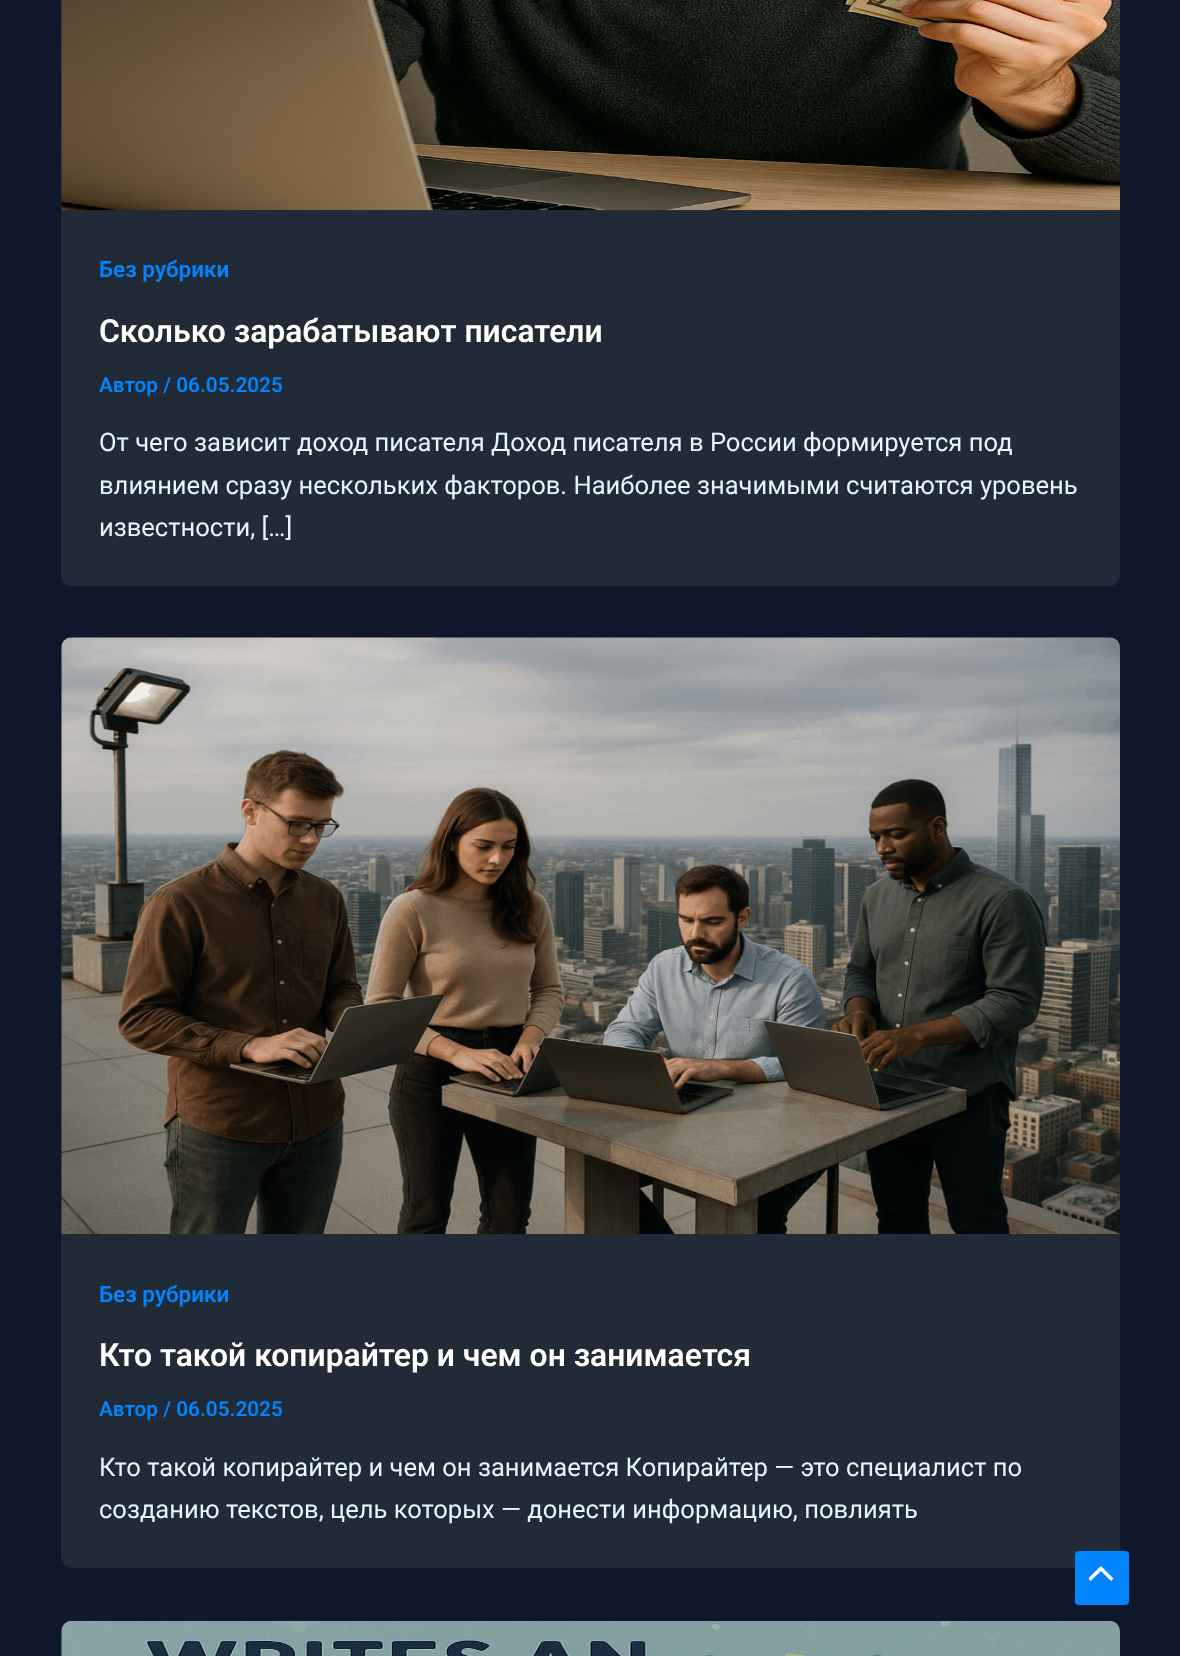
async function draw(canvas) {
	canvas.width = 1180;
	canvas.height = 1656;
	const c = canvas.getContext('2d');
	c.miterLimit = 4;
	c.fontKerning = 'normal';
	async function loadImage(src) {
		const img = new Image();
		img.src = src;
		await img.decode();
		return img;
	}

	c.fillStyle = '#0f172a';
	c.fillRect(0, 0, 1180, 1656);
	c.fillStyle = '#212a37';
	c.beginPath();
	c.roundRect(61, -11, 1059, 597, 11);
	c.fill();
	c.drawImage(await loadImage('img1.png'), 61, 0, 1059, 211);
	c.font = '600 22.5px Roboto';
	c.fillStyle = '#0085ff';
	c.fillText('Без рубрики', 99, 277);
	c.font = '600 31.9px Roboto';
	c.fillStyle = '#fff';
	c.fillText('Сколько зарабатывают писатели', 99, 342);
	c.font = '600 20.75px Roboto';
	c.fillStyle = '#0085ff';
	c.fillText('Автор / 06.05.2025', 99, 392);
	c.font = '25.55px Roboto';
	c.fillStyle = '#e7f6ff';
	for (const [text, x, y] of [
		['От чего зависит доход писателя Доход писателя в России формируется под', 99, 451],
		['влиянием сразу нескольких факторов. Наиболее значимыми считаются уровень', 99, 494],
		['известности, […]', 99, 536],
	]) {
		c.fillText(text, x, y);
	}
	c.fillStyle = '#212a37';
	c.beginPath();
	c.roundRect(61, 637, 1059, 931, 11);
	c.fill();
	c.drawImage(await loadImage('img2.png'), 61, 637, 1059, 597);
	c.font = '600 22.5px Roboto';
	c.fillStyle = '#0085ff';
	c.fillText('Без рубрики', 99, 1302);
	c.font = '600 31.9px Roboto';
	c.fillStyle = '#fff';
	c.fillText('Кто такой копирайтер и чем он занимается', 99, 1366);
	c.font = '600 20.75px Roboto';
	c.fillStyle = '#0085ff';
	c.fillText('Автор / 06.05.2025', 99, 1416);
	c.font = '25.55px Roboto';
	c.fillStyle = '#e7f6ff';
	c.fillText('Кто такой копирайтер и чем он занимается Копирайтер — это специалист по', 99, 1476);
	c.fillText('созданию текстов, цель которых — донести информацию, повлиять', 99, 1518);
	c.fillStyle = '#212a37';
	c.beginPath();
	c.roundRect(61, 1621, 1059, 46, 11);
	c.fill();
	c.drawImage(await loadImage('img3.png'), 61, 1621, 1059, 35);
	c.fillStyle = '#0085ff';
	c.beginPath();
	c.roundRect(1075, 1551, 54, 54, 4);
	c.fill();
	c.save();
	c.beginPath();
	c.rect(1089, 1563, 26, 21);
	c.clip();
	c.fillStyle = '#fff';
	c.beginPath();
	c.moveTo(1113.5, 1578.5);
	c.lineTo(1101, 1566);
	c.lineTo(1088, 1578.5);
	c.lineTo(1090.5, 1581);
	c.lineTo(1101, 1571);
	c.lineTo(1111, 1581);
	c.closePath();
	c.fill();
	c.restore();
}

draw(document.querySelector('canvas'));
